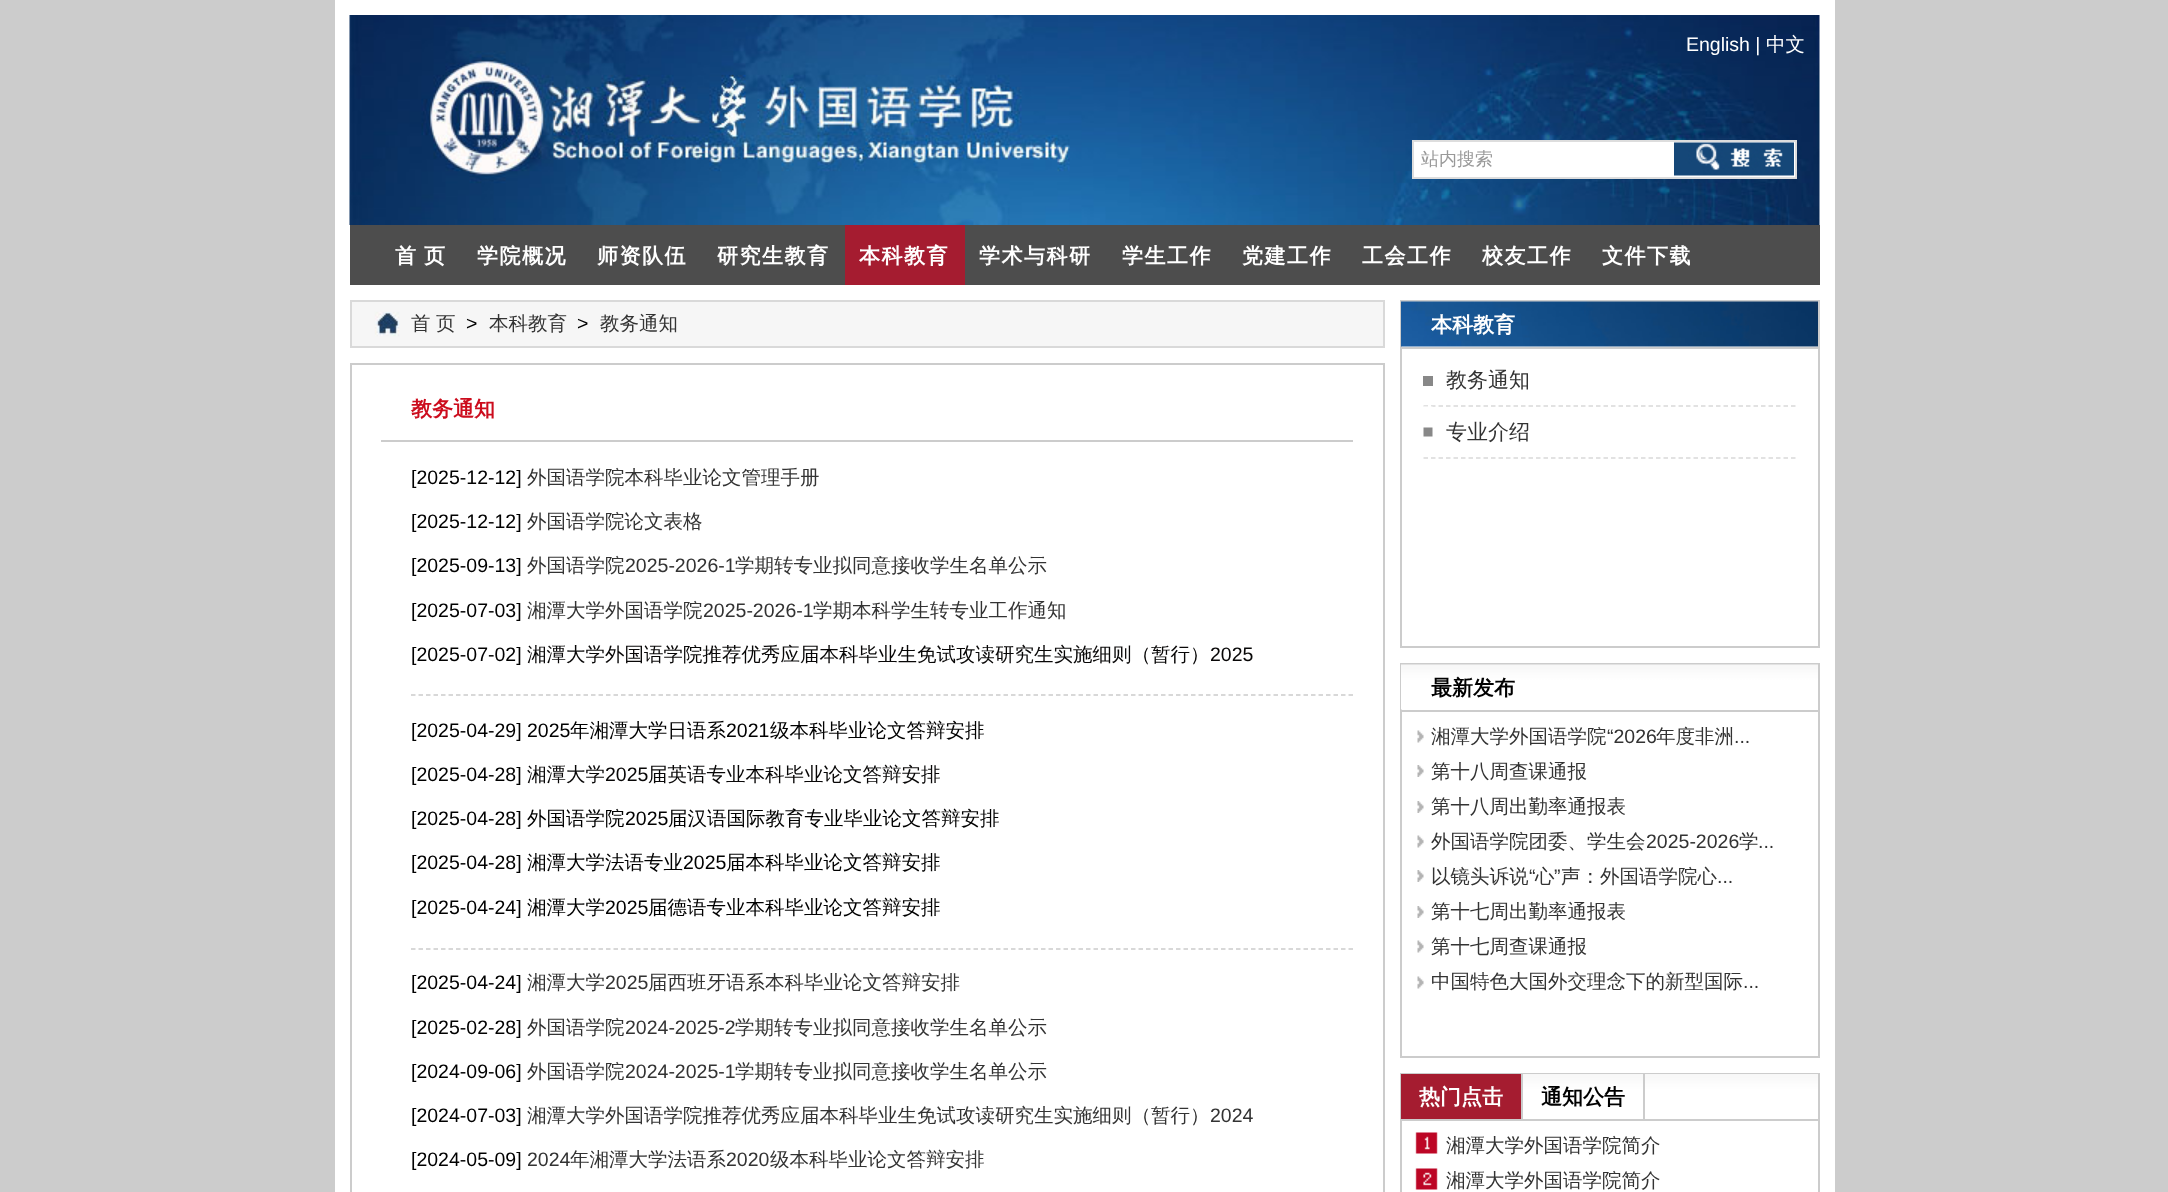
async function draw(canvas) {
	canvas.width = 2168;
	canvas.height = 1192;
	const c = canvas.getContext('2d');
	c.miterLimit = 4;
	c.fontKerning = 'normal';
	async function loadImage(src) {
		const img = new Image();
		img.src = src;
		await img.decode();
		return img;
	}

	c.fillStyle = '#ccc';
	c.fillRect(0, 0, 2168, 1192);
	c.fillStyle = '#fff';
	c.fillRect(335, 0, 1500, 1192);
	c.drawImage(await loadImage('img1.png'), 349, 15, 1471, 210);
	c.font = '19.5px Liberation Sans';
	c.fillText('English |', 1686, 51);
	c.font = '500 19.5px WenQuanYi Zen Hei';
	c.fillText('中文', 1766, 51);
	c.beginPath();
	c.rect(1413, 141, 383, 37);
	c.fill();
	c.strokeStyle = '#ddd';
	c.lineWidth = 2;
	c.stroke();
	c.save();
	c.beginPath();
	c.rect(1421, 141, 375, 36);
	c.clip();
	c.font = '500 18px WenQuanYi Zen Hei';
	c.fillStyle = '#999';
	c.fillText('站内搜索', 1421, 165);
	c.restore();
	c.drawImage(await loadImage('img2.png'), 1674, 142, 120, 34);
	c.fillStyle = '#4d4d4d';
	c.fillRect(350, 225, 1470, 60);
	c.letterSpacing = '1.5px';
	c.font = 'bold 21px WenQuanYi Zen Hei';
	c.fillStyle = '#fff';
	for (const [text, x, y] of [
		['首', 395, 263],
		['页', 424, 263],
		['学院概况', 477, 263],
		['师资队伍', 597, 263],
		['研究生教育', 717, 263],
	]) {
		c.fillText(text, x, y);
	}
	c.fillStyle = '#a51c30';
	c.fillRect(845, 225, 120, 60);
	c.fillStyle = '#fff';
	for (const [text, x, y] of [
		['本科教育', 859, 263],
		['学术与科研', 979, 263],
		['学生工作', 1122, 263],
		['党建工作', 1242, 263],
		['工会工作', 1362, 263],
		['校友工作', 1482, 263],
		['文件下载', 1602, 263],
	]) {
		c.fillText(text, x, y);
	}
	c.drawImage(await loadImage('img3.png'), 352, 302, 1031, 44);
	c.strokeStyle = '#d9d9d9';
	c.strokeRect(351, 301, 1033, 46);
	c.letterSpacing = '0px';
	c.font = '500 19.5px WenQuanYi Zen Hei';
	c.fillStyle = '#333';
	c.fillText('首', 411, 330);
	c.fillText('页', 436, 330);
	c.font = '19.5px Liberation Sans';
	c.fillStyle = '#000';
	c.fillText('>', 466, 330);
	c.font = '500 19.5px WenQuanYi Zen Hei';
	c.fillStyle = '#333';
	c.fillText('本科教育', 489, 330);
	c.font = '19.5px Liberation Sans';
	c.fillStyle = '#000';
	c.fillText('>', 577, 330);
	c.font = '500 19.5px WenQuanYi Zen Hei';
	c.fillStyle = '#333';
	c.fillText('教务通知', 600, 330);
	c.strokeStyle = '#ccc';
	c.strokeRect(351, 364, 1033, 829);
	c.fillStyle = '#ccc';
	c.fillRect(381, 440, 972, 2);
	c.font = 'bold 21px WenQuanYi Zen Hei';
	c.fillStyle = '#cc0c1d';
	c.fillText('教务通知', 411, 416);
	c.font = '19.5px Liberation Sans';
	c.fillStyle = '#000';
	c.fillText('[2025-12-12]', 411, 484);
	c.font = '500 19.5px WenQuanYi Zen Hei';
	c.fillStyle = '#333';
	c.fillText('外国语学院本科毕业论文管理手册', 527, 484);
	c.font = '19.5px Liberation Sans';
	c.fillStyle = '#000';
	c.fillText('[2025-12-12]', 411, 528);
	c.font = '500 19.5px WenQuanYi Zen Hei';
	c.fillStyle = '#333';
	c.fillText('外国语学院论文表格', 527, 528);
	c.font = '19.5px Liberation Sans';
	c.fillStyle = '#000';
	c.fillText('[2025-09-13]', 411, 572);
	c.font = '500 19.5px WenQuanYi Zen Hei';
	c.fillStyle = '#333';
	c.fillText('外国语学院', 527, 572);
	c.font = '19.5px Liberation Sans';
	c.fillText('2025-2026-1', 625, 572);
	c.font = '500 19.5px WenQuanYi Zen Hei';
	c.fillText('学期转专业拟同意接收学生名单公示', 735, 572);
	c.font = '19.5px Liberation Sans';
	c.fillStyle = '#000';
	c.fillText('[2025-07-03]', 411, 617);
	c.font = '500 19.5px WenQuanYi Zen Hei';
	c.fillStyle = '#333';
	c.fillText('湘潭大学外国语学院', 527, 617);
	c.font = '19.5px Liberation Sans';
	c.fillText('2025-2026-1', 703, 617);
	c.font = '500 19.5px WenQuanYi Zen Hei';
	c.fillText('学期本科学生转专业工作通知', 813, 617);
	c.font = '19.5px Liberation Sans';
	c.fillStyle = '#000';
	c.fillText('[2025-07-02]', 411, 661);
	c.font = '500 19.5px WenQuanYi Zen Hei';
	c.fillStyle = '#080707';
	c.fillText('湘潭大学外国语学院推荐优秀应届本科毕业生免试攻读研究生实施细则（暂行）', 527, 661);
	c.font = '19.5px Liberation Sans';
	c.fillText('2025', 1210, 661);
	c.beginPath();
	c.moveTo(411, 695);
	c.lineTo(1353, 695);
	c.lineWidth = 1.5;
	c.setLineDash([4.5, 3]);
	c.stroke();
	c.fillStyle = '#000';
	c.fillText('[2025-04-29]', 411, 737);
	c.fillText('2025', 527, 737);
	c.font = '500 19.5px WenQuanYi Zen Hei';
	c.fillText('年湘潭大学日语系', 570, 737);
	c.font = '19.5px Liberation Sans';
	c.fillText('2021', 726, 737);
	c.font = '500 19.5px WenQuanYi Zen Hei';
	c.fillText('级本科毕业论文答辩安排', 770, 737);
	c.font = '19.5px Liberation Sans';
	c.fillText('[2025-04-28]', 411, 781);
	c.font = '500 19.5px WenQuanYi Zen Hei';
	c.fillStyle = '#080707';
	c.fillText('湘潭大学', 527, 781);
	c.font = '19.5px Liberation Sans';
	c.fillText('2025', 605, 781);
	c.font = '500 19.5px WenQuanYi Zen Hei';
	c.fillText('届英语专业本科毕业论文答辩安排', 648, 781);
	c.font = '19.5px Liberation Sans';
	c.fillStyle = '#000';
	c.fillText('[2025-04-28]', 411, 825);
	c.font = '500 19.5px WenQuanYi Zen Hei';
	c.fillText('外国语学院', 527, 825);
	c.font = '19.5px Liberation Sans';
	c.fillText('2025', 625, 825);
	c.font = '500 19.5px WenQuanYi Zen Hei';
	c.fillText('届汉语国际教育专业毕业论文答辩安排', 668, 825);
	c.font = '19.5px Liberation Sans';
	c.fillText('[2025-04-28]', 411, 869);
	c.font = '500 19.5px WenQuanYi Zen Hei';
	c.fillText('湘潭大学法语专业', 527, 869);
	c.font = '19.5px Liberation Sans';
	c.fillText('2025', 683, 869);
	c.font = '500 19.5px WenQuanYi Zen Hei';
	c.fillText('届本科毕业论文答辩安排', 726, 869);
	c.font = '19.5px Liberation Sans';
	c.fillText('[2025-04-24]', 411, 914);
	c.font = '500 19.5px WenQuanYi Zen Hei';
	c.fillText('湘潭大学', 527, 914);
	c.font = '19.5px Liberation Sans';
	c.fillText('2025', 605, 914);
	c.font = '500 19.5px WenQuanYi Zen Hei';
	c.fillText('届德语专业本科毕业论文答辩安排', 648, 914);
	c.beginPath();
	c.moveTo(411, 949);
	c.lineTo(1353, 949);
	c.stroke();
	c.font = '19.5px Liberation Sans';
	c.fillText('[2025-04-24]', 411, 989);
	c.font = '500 19.5px WenQuanYi Zen Hei';
	c.fillStyle = '#333';
	c.fillText('湘潭大学', 527, 989);
	c.font = '19.5px Liberation Sans';
	c.fillText('2025', 605, 989);
	c.font = '500 19.5px WenQuanYi Zen Hei';
	c.fillText('届西班牙语系本科毕业论文答辩安排', 648, 989);
	c.font = '19.5px Liberation Sans';
	c.fillStyle = '#000';
	c.fillText('[2025-02-28]', 411, 1034);
	c.font = '500 19.5px WenQuanYi Zen Hei';
	c.fillStyle = '#333';
	c.fillText('外国语学院', 527, 1034);
	c.font = '19.5px Liberation Sans';
	c.fillText('2024-2025-2', 625, 1034);
	c.font = '500 19.5px WenQuanYi Zen Hei';
	c.fillText('学期转专业拟同意接收学生名单公示', 735, 1034);
	c.font = '19.5px Liberation Sans';
	c.fillStyle = '#000';
	c.fillText('[2024-09-06]', 411, 1078);
	c.font = '500 19.5px WenQuanYi Zen Hei';
	c.fillStyle = '#333';
	c.fillText('外国语学院', 527, 1078);
	c.font = '19.5px Liberation Sans';
	c.fillText('2024-2025-1', 625, 1078);
	c.font = '500 19.5px WenQuanYi Zen Hei';
	c.fillText('学期转专业拟同意接收学生名单公示', 735, 1078);
	c.font = '19.5px Liberation Sans';
	c.fillStyle = '#000';
	c.fillText('[2024-07-03]', 411, 1122);
	c.font = '500 19.5px WenQuanYi Zen Hei';
	c.fillStyle = '#333';
	c.fillText('湘潭大学外国语学院推荐优秀应届本科毕业生免试攻读研究生实施细则（暂行）', 527, 1122);
	c.font = '19.5px Liberation Sans';
	c.fillText('2024', 1210, 1122);
	c.fillStyle = '#000';
	c.fillText('[2024-05-09]', 411, 1166);
	c.fillStyle = '#333';
	c.fillText('2024', 527, 1166);
	c.font = '500 19.5px WenQuanYi Zen Hei';
	c.fillText('年湘潭大学法语系', 570, 1166);
	c.font = '19.5px Liberation Sans';
	c.fillText('2020', 726, 1166);
	c.font = '500 19.5px WenQuanYi Zen Hei';
	c.fillText('级本科毕业论文答辩安排', 770, 1166);
	c.lineWidth = 2;
	c.setLineDash([]);
	c.strokeRect(1401, 301, 418, 346);
	c.drawImage(await loadImage('img4.png'), 1401, 301, 417, 46);
	c.fillStyle = '#ccc';
	c.fillRect(1401, 347, 417, 2);
	c.font = 'bold 21px WenQuanYi Zen Hei';
	c.fillStyle = '#fff';
	c.fillText('本科教育', 1431, 332);
	c.fillStyle = '#888';
	c.fillRect(1423, 376, 10, 10);
	c.beginPath();
	c.moveTo(1423.5, 406);
	c.lineTo(1795.5, 406);
	c.strokeStyle = '#d9d9d9';
	c.lineWidth = 1.5;
	c.setLineDash([4.5, 3]);
	c.stroke();
	c.font = '500 21px WenQuanYi Zen Hei';
	c.fillStyle = '#333';
	c.fillText('教务通知', 1446, 387);
	c.drawImage(await loadImage('img5.png'), 1423, 406, 10, 31);
	c.beginPath();
	c.moveTo(1423.5, 458);
	c.lineTo(1795.5, 458);
	c.stroke();
	c.fillText('专业介绍', 1446, 439);
	c.strokeStyle = '#ccc';
	c.lineWidth = 2;
	c.setLineDash([]);
	c.strokeRect(1401, 664, 418, 393);
	c.drawImage(await loadImage('img6.png'), 1401, 664, 417, 46);
	c.fillStyle = '#ccc';
	c.fillRect(1401, 710, 417, 2);
	c.font = 'bold 21px WenQuanYi Zen Hei';
	c.fillStyle = '#000';
	c.fillText('最新发布', 1431, 695);
	c.drawImage(await loadImage('img7.png'), 1417, 730, 7, 13);
	c.font = '500 19.5px WenQuanYi Zen Hei';
	c.fillStyle = '#333';
	c.fillText('湘潭大学外国语学院', 1431, 743);
	c.font = '19.5px Liberation Sans';
	c.fillText('“2026', 1607, 743);
	c.font = '500 19.5px WenQuanYi Zen Hei';
	c.fillText('年度非洲', 1656, 743);
	c.font = '19.5px Liberation Sans';
	c.fillText('...', 1734, 743);
	c.drawImage(await loadImage('img8.png'), 1417, 765, 7, 12);
	c.font = '500 19.5px WenQuanYi Zen Hei';
	c.fillText('第十八周查课通报', 1431, 778);
	c.drawImage(await loadImage('img8.png'), 1417, 801, 7, 12);
	c.fillText('第十八周出勤率通报表', 1431, 813);
	c.drawImage(await loadImage('img7.png'), 1417, 835, 7, 13);
	c.fillText('外国语学院团委、学生会', 1431, 848);
	c.font = '19.5px Liberation Sans';
	c.fillText('2025-2026', 1646, 848);
	c.font = '500 19.5px WenQuanYi Zen Hei';
	c.fillText('学', 1739, 848);
	c.font = '19.5px Liberation Sans';
	c.fillText('...', 1758, 848);
	c.drawImage(await loadImage('img8.png'), 1417, 870, 7, 12);
	c.font = '500 19.5px WenQuanYi Zen Hei';
	c.fillText('以镜头诉说', 1431, 883);
	c.font = '19.5px Liberation Sans';
	c.fillText('“', 1529, 883);
	c.font = '500 19.5px WenQuanYi Zen Hei';
	c.fillText('心', 1535, 883);
	c.font = '19.5px Liberation Sans';
	c.fillText('”', 1554, 883);
	c.font = '500 19.5px WenQuanYi Zen Hei';
	c.fillText('声：外国语学院心', 1561, 883);
	c.font = '19.5px Liberation Sans';
	c.fillText('...', 1717, 883);
	c.drawImage(await loadImage('img8.png'), 1417, 906, 7, 12);
	c.font = '500 19.5px WenQuanYi Zen Hei';
	c.fillText('第十七周出勤率通报表', 1431, 918);
	c.drawImage(await loadImage('img7.png'), 1417, 940, 7, 13);
	c.fillText('第十七周查课通报', 1431, 953);
	c.drawImage(await loadImage('img7.png'), 1417, 976, 7, 13);
	c.fillText('中国特色大国外交理念下的新型国际', 1431, 988);
	c.font = '19.5px Liberation Sans';
	c.fillText('...', 1743, 988);
	c.strokeRect(1401, 1074, 418, 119);
	c.drawImage(await loadImage('img9.png'), 1523, 1074, 295, 45);
	for (const [x, y, w, h, color] of [
		[1401, 1119, 417, 2, '#ccc'],
		[1401, 1074, 120, 45, '#a51c30'],
		[1521, 1074, 2, 45, '#ccc'],
	]) {
		c.fillStyle = color;
		c.fillRect(x, y, w, h);
	}
	c.font = 'bold 21px WenQuanYi Zen Hei';
	c.fillStyle = '#fff';
	c.fillText('热门点击', 1419, 1104);
	c.fillStyle = '#ccc';
	c.fillRect(1643, 1074, 2, 45);
	c.fillStyle = '#000';
	c.fillText('通知公告', 1541, 1104);
	c.drawImage(await loadImage('img10.png'), 1415, 1132, 23, 58);
	c.font = '500 19.5px WenQuanYi Zen Hei';
	c.fillStyle = '#333';
	c.fillText('湘潭大学外国语学院简介', 1446, 1152);
	c.fillText('湘潭大学外国语学院简介', 1446, 1187);
}

draw(document.querySelector('canvas'));
